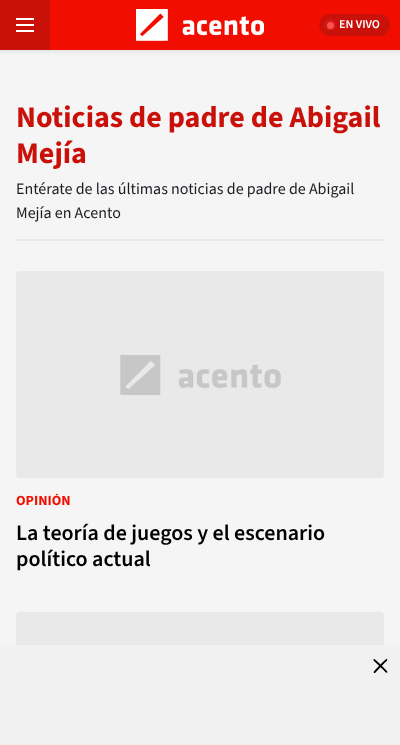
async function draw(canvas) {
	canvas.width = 400;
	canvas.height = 745;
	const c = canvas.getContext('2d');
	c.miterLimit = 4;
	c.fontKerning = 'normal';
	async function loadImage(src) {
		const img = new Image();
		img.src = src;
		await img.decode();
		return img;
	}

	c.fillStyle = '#f5f5f5';
	c.fillRect(0, 0, 400, 745);
	c.fillStyle = '#0000000d';
	c.filter = 'blur(1.5px)';
	c.beginPath();
	c.rect(0, 3, 400, 50);
	c.fill();
	c.filter = 'none';
	for (const [x, y, w, h, color] of [
		[50, 0, 350, 50, '#f20d01'],
		[0, 0, 50, 50, '#c9110a'],
		[16, 18, 18, 2, '#fff'],
		[16, 24, 18, 2, '#fff'],
		[16, 30, 18, 2, '#fff'],
	]) {
		c.fillStyle = color;
		c.fillRect(x, y, w, h);
	}
	c.drawImage(await loadImage('img1.png'), 136, 9, 128, 32);
	c.fillStyle = '#c9110a';
	c.beginPath();
	c.roundRect(319, 14, 71, 22, 11);
	c.fill();
	c.fillStyle = '#d11a14';
	c.beginPath();
	c.arc(330, 25, 6, 0, 2 * Math.PI);
	c.fill();
	c.fillStyle = '#ff5050';
	c.beginPath();
	c.arc(330.5, 25.5, 3.5, 0, 2 * Math.PI);
	c.fill();
	c.font = '600 12px "Source Sans 3"';
	c.fillStyle = '#fff';
	c.fillText('EN VIVO', 339, 28);
	c.fillStyle = '#e9e9e9';
	c.fillRect(16, 239, 368, 2);
	c.font = 'bold 30px "Source Sans 3"';
	c.fillStyle = '#c9110a';
	c.fillText('Noticias de padre de Abigail', 16, 127);
	c.fillText('Mejía', 16, 163);
	c.font = '16px "Source Sans 3"';
	c.fillStyle = '#1d1c22';
	c.fillText('Entérate de las últimas noticias de padre de Abigail', 16, 194);
	c.fillText('Mejía en Acento', 16, 218);
	c.fillStyle = '#e9e9e9';
	c.beginPath();
	c.roundRect(16, 271, 368, 207, 4);
	c.fill();
	c.drawImage(await loadImage('img2.png'), 120, 355, 161, 40);
	c.save();
	c.beginPath();
	c.rect(16, 494, 55, 14);
	c.clip();
	c.font = 'bold 14px "Source Sans 3"';
	c.fillStyle = '#f20d01';
	c.fillText('OPINIÓN', 16, 505);
	c.restore();
	c.font = '600 22px "Source Sans 3"';
	c.fillStyle = '#000';
	c.fillText('La teoría de juegos y el escenario', 16, 540);
	c.fillText('político actual', 16, 566);
	c.fillStyle = '#e9e9e9';
	c.beginPath();
	c.roundRect(16, 612, 368, 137, 4);
	c.fill();
	c.fillStyle = '#f1f1f1';
	c.fillRect(0, 645, 400, 100);
	c.fillStyle = '#000';
	c.beginPath();
	c.moveTo(375, 659.5);
	c.bezierCurveTo(377, 661, 387.5, 671, 387.5, 672);
	c.bezierCurveTo(387, 674, 385, 672, 384, 670.5);
	c.lineTo(373.5, 660.5);
	c.bezierCurveTo(373, 659.5, 374.5, 658.5, 375, 659.5);
	c.closePath();
	c.fill();
	c.beginPath();
	c.moveTo(374, 671.5);
	c.bezierCurveTo(375.5, 669.5, 385.5, 659, 386.5, 659);
	c.bezierCurveTo(388.5, 659.5, 386.5, 661.5, 385, 662.5);
	c.lineTo(375, 673);
	c.bezierCurveTo(374, 673.5, 373, 672, 374, 671.5);
	c.closePath();
	c.fill();
}

draw(document.querySelector('canvas'));
